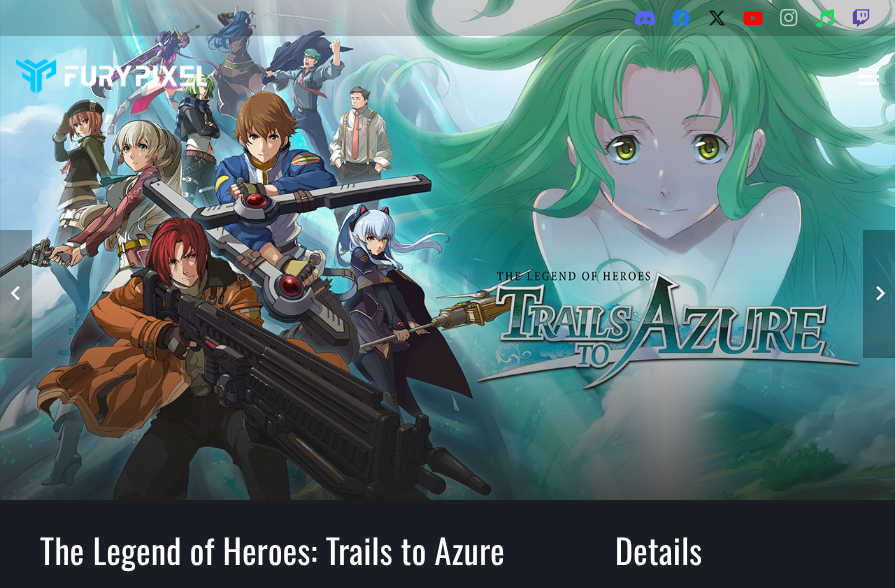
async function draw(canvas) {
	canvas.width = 895;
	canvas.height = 588;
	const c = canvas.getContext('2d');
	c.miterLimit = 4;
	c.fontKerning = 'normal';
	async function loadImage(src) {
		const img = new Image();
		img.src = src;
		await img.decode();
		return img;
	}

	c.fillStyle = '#1b1d25';
	c.fillRect(0, 0, 895, 588);
	c.drawImage(await loadImage('img9.png'), 0, 0, 895, 500);
	c.fillStyle = '#00000033';
	c.fillRect(0, 0, 895, 36);
	c.drawImage(await loadImage('img1.png'), 634, 10, 22, 17);
	c.drawImage(await loadImage('img2.png'), 672, 9, 18, 18);
	c.drawImage(await loadImage('img3.png'), 709, 10, 16, 16);
	c.drawImage(await loadImage('img4.png'), 743, 11, 20, 14);
	c.drawImage(await loadImage('img5.png'), 780, 8, 18, 19);
	c.drawImage(await loadImage('img6.png'), 816, 9, 18, 19);
	c.drawImage(await loadImage('img7.png'), 852, 9, 18, 18);
	c.drawImage(await loadImage('img8.png'), 16, 59, 191, 34);
	for (const [x, y, w, h, color] of [
		[859, 75, 20, 3, '#fff'],
		[859, 68, 20, 3, '#fff'],
		[859, 82, 20, 3, '#fff'],
		[0, 230, 32, 128, '#0000004d'],
	]) {
		c.fillStyle = color;
		c.fillRect(x, y, w, h);
	}
	c.drawImage(await loadImage('img10.png'), 10, 286, 10, 15);
	c.fillRect(863, 230, 32, 128);
	c.drawImage(await loadImage('img11.png'), 876, 286, 9, 15);
	c.letterSpacing = '0.35px';
	c.font = '34px Oswald';
	c.fillStyle = '#fff';
	c.fillText('The Legend of Heroes: Trails to Azure', 40, 565);
	c.fillText('Details', 615, 565);
}

draw(document.querySelector('canvas'));
